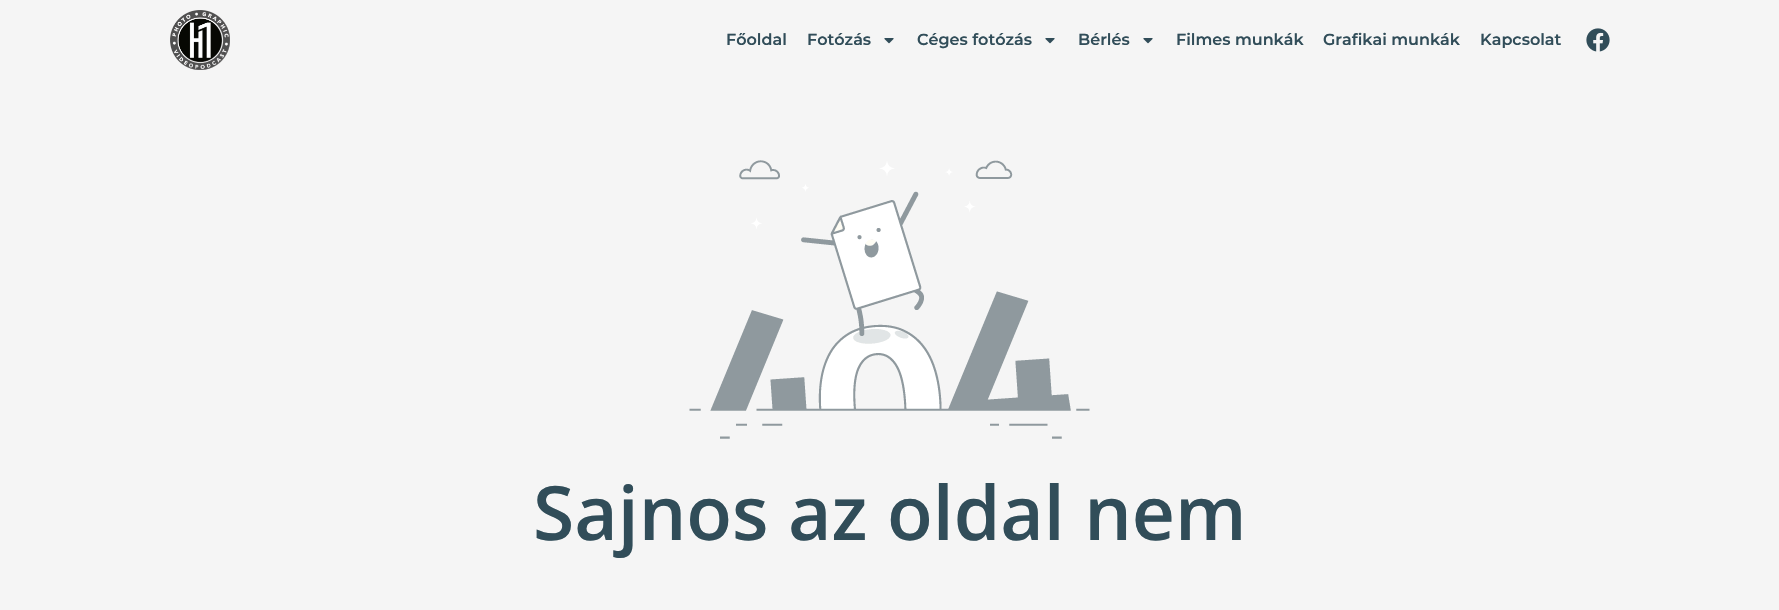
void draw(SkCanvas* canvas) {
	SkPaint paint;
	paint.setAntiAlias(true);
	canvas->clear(0xfff5f5f5);
	canvas->drawImageRect(SkImages::DeferredFromEncodedData(SkData::MakeFromFileName("img1.png")), SkRect::MakeXYWH(170, 10, 60, 60), SkSamplingOptions());
	SkFont f1(fontMgr->matchFamilyStyle("Montserrat", SkFontStyle(600, SkFontStyle::kNormal_Width, SkFontStyle::kUpright_Slant)), 16);
	f1.setSubpixel(true);
	paint.setColor(0xff314d59);
	canvas->drawString("Főoldal", 726, 45, f1, paint);
	canvas->drawString("Fotózás", 807, 45, f1, paint);
	canvas->drawImageRect(SkImages::DeferredFromEncodedData(SkData::MakeFromFileName("img2.png")), SkRect::MakeXYWH(884, 38, 10, 6), SkSamplingOptions());
	canvas->drawString("Céges fotózás", 917, 45, f1, paint);
	canvas->drawImageRect(SkImages::DeferredFromEncodedData(SkData::MakeFromFileName("img2.png")), SkRect::MakeXYWH(1045, 38, 10, 6), SkSamplingOptions());
	canvas->drawString("Bérlés", 1078, 45, f1, paint);
	canvas->drawImageRect(SkImages::DeferredFromEncodedData(SkData::MakeFromFileName("img2.png")), SkRect::MakeXYWH(1143, 38, 10, 6), SkSamplingOptions());
	canvas->drawString("Filmes munkák", 1176, 45, f1, paint);
	canvas->drawString("Grafikai munkák", 1323, 45, f1, paint);
	canvas->drawString("Kapcsolat", 1480, 45, f1, paint);
	canvas->drawImageRect(SkImages::DeferredFromEncodedData(SkData::MakeFromFileName("img3.png")), SkRect::MakeXYWH(1586, 28, 24, 24), SkSamplingOptions());
	canvas->drawImageRect(SkImages::DeferredFromEncodedData(SkData::MakeFromFileName("img4.png")), SkRect::MakeXYWH(689, 160, 401, 279), SkSamplingOptions());
	SkFont f2(fontMgr->matchFamilyStyle("Open Sans", SkFontStyle(600, SkFontStyle::kNormal_Width, SkFontStyle::kUpright_Slant)), 75);
	f2.setSubpixel(true);
	canvas->drawString("Sajnos az oldal nem", 533, 540, f2, paint);
}
